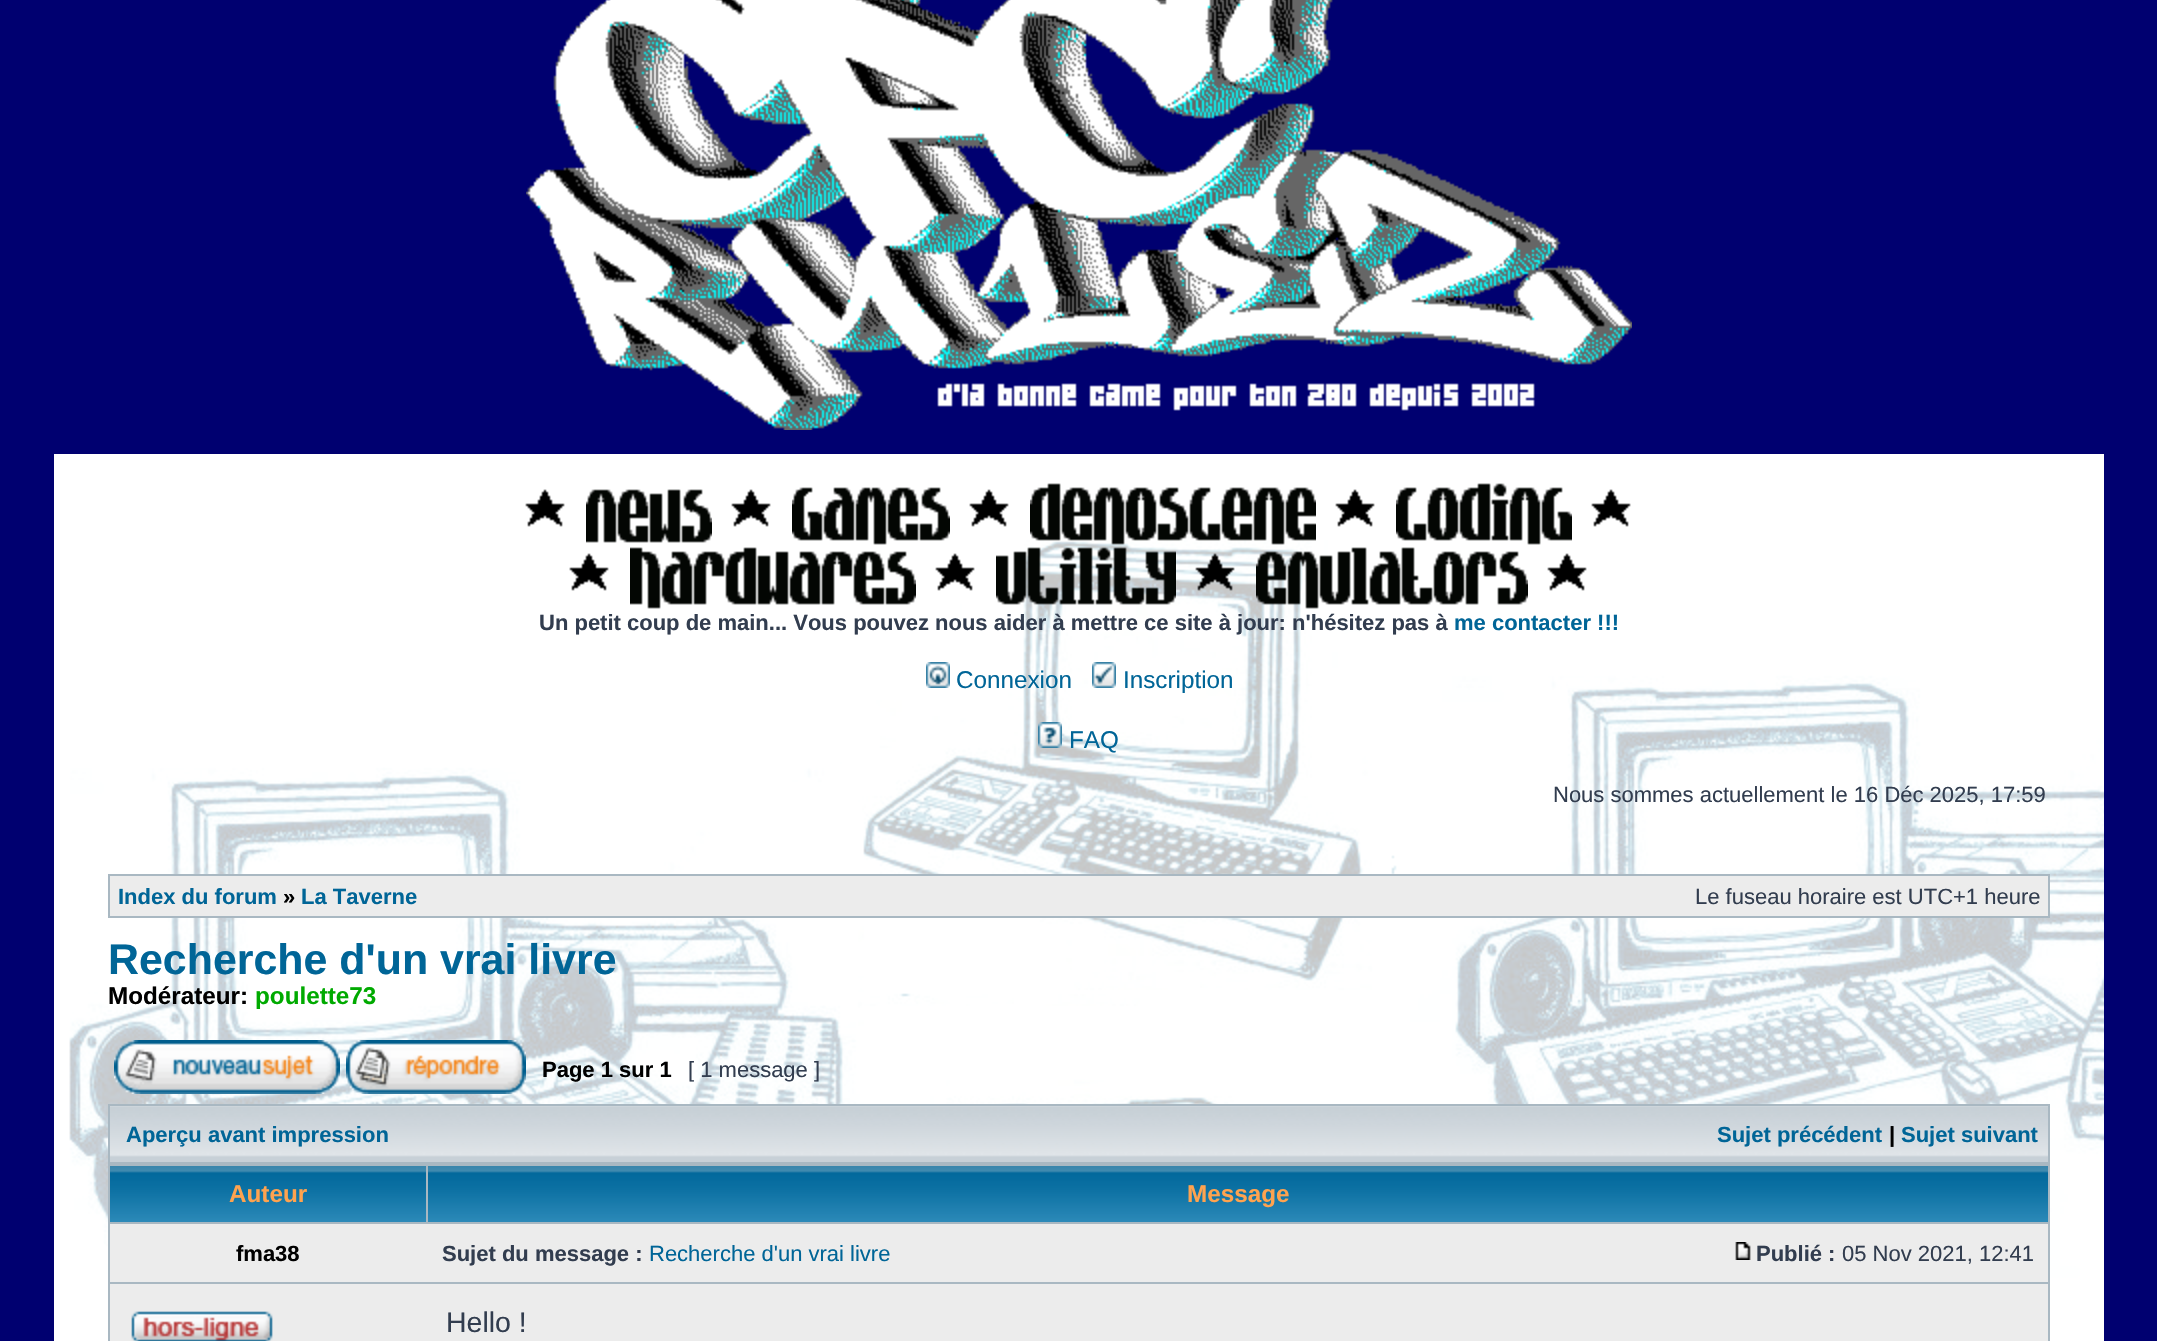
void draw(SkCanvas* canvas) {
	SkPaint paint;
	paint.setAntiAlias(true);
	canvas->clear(0xff000070);
	canvas->drawImageRect(SkImages::DeferredFromEncodedData(SkData::MakeFromFileName("img1.png")), SkRect::MakeXYWH(526, 0, 1106, 430), SkSamplingOptions());
	canvas->drawImageRect(SkImages::DeferredFromEncodedData(SkData::MakeFromFileName("img2.png")), SkRect::MakeXYWH(54, 454, 2050, 887), SkSamplingOptions());
	canvas->drawImageRect(SkImages::DeferredFromEncodedData(SkData::MakeFromFileName("img3.png")), SkRect::MakeXYWH(525, 489, 40, 38), SkSamplingOptions());
	canvas->drawImageRect(SkImages::DeferredFromEncodedData(SkData::MakeFromFileName("img4.png")), SkRect::MakeXYWH(586, 489, 126, 54), SkSamplingOptions());
	canvas->drawImageRect(SkImages::DeferredFromEncodedData(SkData::MakeFromFileName("img3.png")), SkRect::MakeXYWH(731, 489, 40, 38), SkSamplingOptions());
	canvas->drawImageRect(SkImages::DeferredFromEncodedData(SkData::MakeFromFileName("img5.png")), SkRect::MakeXYWH(792, 487, 158, 58), SkSamplingOptions());
	canvas->drawImageRect(SkImages::DeferredFromEncodedData(SkData::MakeFromFileName("img3.png")), SkRect::MakeXYWH(969, 489, 40, 38), SkSamplingOptions());
	canvas->drawImageRect(SkImages::DeferredFromEncodedData(SkData::MakeFromFileName("img6.png")), SkRect::MakeXYWH(1030, 483, 286, 62), SkSamplingOptions());
	canvas->drawImageRect(SkImages::DeferredFromEncodedData(SkData::MakeFromFileName("img3.png")), SkRect::MakeXYWH(1335, 489, 40, 38), SkSamplingOptions());
	canvas->drawImageRect(SkImages::DeferredFromEncodedData(SkData::MakeFromFileName("img7.png")), SkRect::MakeXYWH(1396, 483, 176, 62), SkSamplingOptions());
	canvas->drawImageRect(SkImages::DeferredFromEncodedData(SkData::MakeFromFileName("img3.png")), SkRect::MakeXYWH(1591, 489, 40, 38), SkSamplingOptions());
	canvas->drawImageRect(SkImages::DeferredFromEncodedData(SkData::MakeFromFileName("img3.png")), SkRect::MakeXYWH(569, 553, 40, 38), SkSamplingOptions());
	canvas->drawImageRect(SkImages::DeferredFromEncodedData(SkData::MakeFromFileName("img8.png")), SkRect::MakeXYWH(630, 547, 286, 62), SkSamplingOptions());
	canvas->drawImageRect(SkImages::DeferredFromEncodedData(SkData::MakeFromFileName("img3.png")), SkRect::MakeXYWH(935, 553, 40, 38), SkSamplingOptions());
	canvas->drawImageRect(SkImages::DeferredFromEncodedData(SkData::MakeFromFileName("img9.png")), SkRect::MakeXYWH(996, 547, 180, 58), SkSamplingOptions());
	canvas->drawImageRect(SkImages::DeferredFromEncodedData(SkData::MakeFromFileName("img10.png")), SkRect::MakeXYWH(1195, 553, 40, 38), SkSamplingOptions());
	canvas->drawImageRect(SkImages::DeferredFromEncodedData(SkData::MakeFromFileName("img11.png")), SkRect::MakeXYWH(1256, 547, 272, 62), SkSamplingOptions());
	canvas->drawImageRect(SkImages::DeferredFromEncodedData(SkData::MakeFromFileName("img3.png")), SkRect::MakeXYWH(1547, 553, 40, 38), SkSamplingOptions());
	SkFont f1(fontMgr->matchFamilyStyle("Liberation Sans", SkFontStyle::Bold()), 22);
	f1.setSubpixel(true);
	paint.setColor(0xff323d4f);
	canvas->drawString("Un petit coup de main... Vous pouvez nous aider à mettre ce site à jour: n'hésitez pas à", 539, 630, f1, paint);
	paint.setColor(0xff006597);
	canvas->drawString("me contacter !!!", 1454, 630, f1, paint);
	canvas->drawImageRect(SkImages::DeferredFromEncodedData(SkData::MakeFromFileName("img12.png")), SkRect::MakeXYWH(926, 662, 24, 26), SkSamplingOptions());
	SkFont f2(fontMgr->matchFamilyStyle("Liberation Sans", SkFontStyle::Normal()), 24.25);
	f2.setSubpixel(true);
	canvas->drawString("Connexion", 956, 688, f2, paint);
	canvas->drawImageRect(SkImages::DeferredFromEncodedData(SkData::MakeFromFileName("img13.png")), SkRect::MakeXYWH(1092, 662, 24, 26), SkSamplingOptions());
	canvas->drawString("Inscription", 1123, 688, f2, paint);
	canvas->drawImageRect(SkImages::DeferredFromEncodedData(SkData::MakeFromFileName("img14.png")), SkRect::MakeXYWH(1038, 722, 24, 26), SkSamplingOptions());
	canvas->drawString("FAQ", 1069, 748, f2, paint);
	SkFont f3(fontMgr->matchFamilyStyle("Liberation Sans", SkFontStyle::Normal()), 22);
	f3.setSubpixel(true);
	paint.setColor(0xff323d4f);
	canvas->drawString("Nous sommes actuellement le 16 Déc 2025, 17:59", 1553, 802, f3, paint);
	paint.setColor(0xffa9b8c2);
	canvas->drawRect(SkRect::MakeXYWH(108, 874, 1942, 44), paint);
	paint.setColor(0xffececec);
	canvas->drawRect(SkRect::MakeXYWH(110, 876, 1938, 40), paint);
	paint.setColor(0xff006597);
	canvas->drawString("Index du forum", 118, 904, f1, paint);
	paint.setColor(0xff000000);
	canvas->drawString("»", 283, 904, f1, paint);
	paint.setColor(0xff006597);
	canvas->drawString("La Taverne", 301, 904, f1, paint);
	paint.setColor(0xff323d4f);
	canvas->drawString("Le fuseau horaire est UTC+1 heure", 1695, 904, f3, paint);
	SkFont f4(fontMgr->matchFamilyStyle("Liberation Sans", SkFontStyle::Bold()), 42.9);
	f4.setSubpixel(true);
	paint.setColor(0xff006597);
	canvas->drawString("Recherche d'un vrai livre", 108, 974, f4, paint);
	SkFont f5(fontMgr->matchFamilyStyle("Liberation Sans", SkFontStyle::Bold()), 24.25);
	f5.setSubpixel(true);
	paint.setColor(0xff000000);
	canvas->drawString("Modérateur:", 108, 1004, f5, paint);
	paint.setColor(0xff00aa00);
	canvas->drawString("poulette73", 255, 1004, f5, paint);
	canvas->drawImageRect(SkImages::DeferredFromEncodedData(SkData::MakeFromFileName("img15.png")), SkRect::MakeXYWH(114, 1040, 226, 54), SkSamplingOptions());
	canvas->drawImageRect(SkImages::DeferredFromEncodedData(SkData::MakeFromFileName("img16.png")), SkRect::MakeXYWH(346, 1040, 180, 54), SkSamplingOptions());
	paint.setColor(0xff000000);
	canvas->drawString("Page 1 sur 1", 542, 1077, f1, paint);
	paint.setColor(0xff323d4f);
	canvas->drawString("[ 1 message ]", 688, 1077, f3, paint);
	paint.setColor(0xffa9b8c2);
	canvas->drawRect(SkRect::MakeXYWH(108, 1104, 1942, 237), paint);
	paint.setColor(0xffc7d0d7);
	canvas->drawRect(SkRect::MakeXYWH(110, 1157, 1938, 5), paint);
	canvas->drawImageRect(SkImages::DeferredFromEncodedData(SkData::MakeFromFileName("img17.png")), SkRect::MakeXYWH(110, 1106, 1938, 51), SkSamplingOptions());
	paint.setColor(0xff006597);
	canvas->drawString("Aperçu avant impression", 126, 1142, f1, paint);
	canvas->drawString("Sujet précédent", 1717, 1142, f1, paint);
	paint.setColor(0xff000000);
	canvas->drawString("|", 1889, 1142, f1, paint);
	paint.setColor(0xff006597);
	canvas->drawString("Sujet suivant", 1901, 1142, f1, paint);
	canvas->drawImageRect(SkImages::DeferredFromEncodedData(SkData::MakeFromFileName("img18.png")), SkRect::MakeXYWH(110, 1166, 316, 56), SkSamplingOptions());
	paint.setColor(0xffffa34f);
	canvas->drawString("Auteur", 229, 1202, f5, paint);
	canvas->drawImageRect(SkImages::DeferredFromEncodedData(SkData::MakeFromFileName("img19.png")), SkRect::MakeXYWH(428, 1166, 1620, 56), SkSamplingOptions());
	canvas->drawString("Message", 1187, 1202, f5, paint);
	paint.setColor(0xffececec);
	canvas->drawRect(SkRect::MakeXYWH(110, 1224, 1938, 58), paint);
	paint.setColor(0xff000000);
	canvas->drawString("fma38", 236, 1261, f1, paint);
	paint.setColor(0xff323d4f);
	canvas->drawString("Sujet du message :", 442, 1261, f1, paint);
	paint.setColor(0xff006597);
	canvas->drawString("Recherche d'un vrai livre", 649, 1261, f3, paint);
	canvas->drawImageRect(SkImages::DeferredFromEncodedData(SkData::MakeFromFileName("img20.png")), SkRect::MakeXYWH(1735, 1242, 16, 18), SkSamplingOptions());
	paint.setColor(0xff323d4f);
	canvas->drawString("Publié :", 1756, 1261, f1, paint);
	canvas->drawString("05 Nov 2021, 12:41", 1842, 1261, f3, paint);
	paint.setColor(0xffececec);
	canvas->drawRect(SkRect::MakeXYWH(110, 1284, 1938, 57), paint);
	canvas->drawImageRect(SkImages::DeferredFromEncodedData(SkData::MakeFromFileName("img21.png")), SkRect::MakeXYWH(131, 1311, 142, 30), SkSamplingOptions());
	SkFont f6(fontMgr->matchFamilyStyle("Liberation Sans", SkFontStyle::Normal()), 28.5);
	f6.setSubpixel(true);
	paint.setColor(0xff323d4f);
	canvas->drawString("Hello !", 446, 1332, f6, paint);
}
